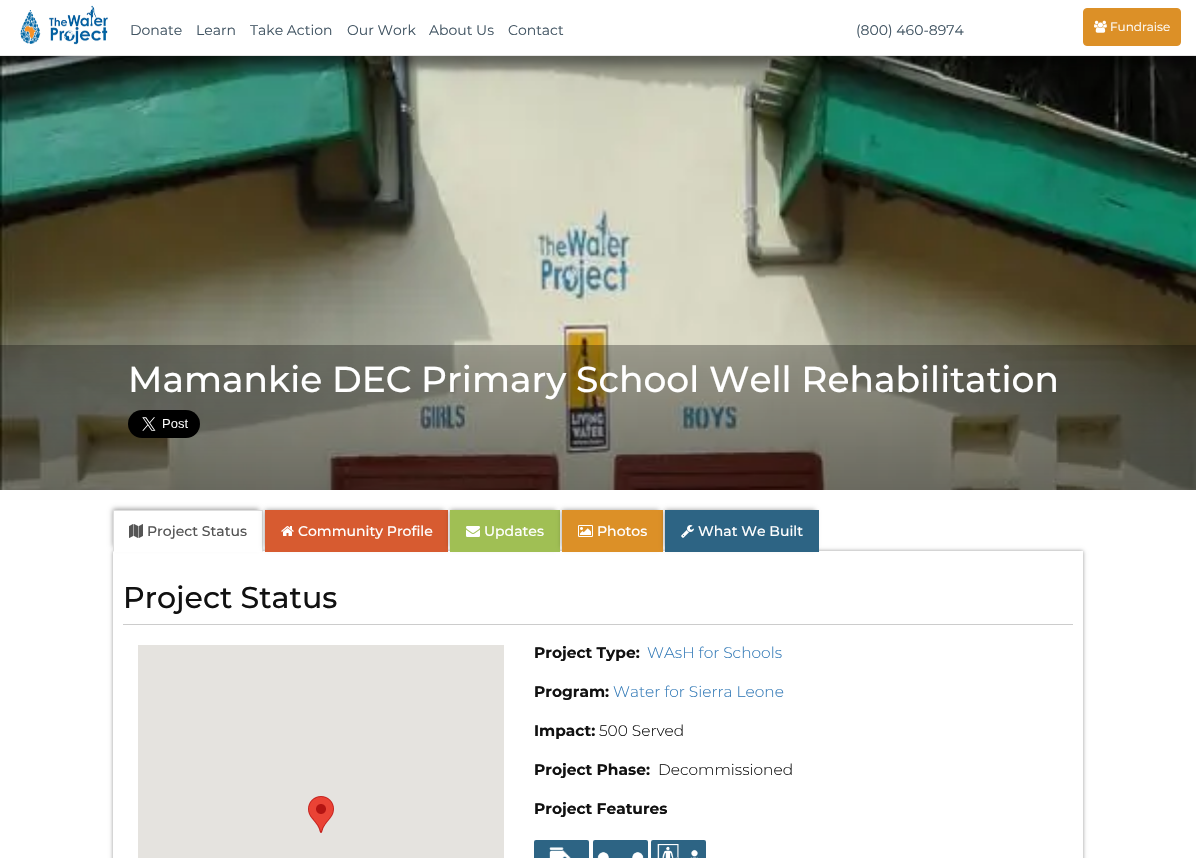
void draw(SkCanvas* canvas) {
	SkPaint paint;
	paint.setAntiAlias(true);
	auto svgPath = [&](const char* data, bool evenOdd = false) {
		SkPath result = *SkParsePath::FromSVGString(data);
		if (evenOdd) result.setFillType(SkPathFillType::kEvenOdd);
		return result;
	};
	canvas->clear(0xffffffff);
	canvas->drawImageRect(SkImages::DeferredFromEncodedData(SkData::MakeFromFileName("img3.png")), SkRect::MakeXYWH(0, 56, 1196, 434), SkSamplingOptions());
	paint.setColor(0x66000000);
	paint.setMaskFilter(SkMaskFilter::MakeBlur(kNormal_SkBlurStyle, 5));
	canvas->drawRect(SkRect::MakeXYWH(0, 10, 1196, 56), paint);
	paint.setMaskFilter(nullptr);
	paint.setColor(0xffffffff);
	canvas->drawRect(SkRect::MakeXYWH(0, 0, 1196, 55), paint);
	paint.setColor(0xffe7e7e7);
	canvas->drawRect(SkRect::MakeXYWH(0, 55, 1196, 1), paint);
	canvas->drawImageRect(SkImages::DeferredFromEncodedData(SkData::MakeFromFileName("img1.png")), SkRect::MakeXYWH(20, 5, 88, 40), SkSamplingOptions());
	SkFont f1(fontMgr->matchFamilyStyle("Montserrat", SkFontStyle::Normal()), 14);
	f1.setSubpixel(true);
	paint.setColor(0xff425563);
	canvas->drawString("Donate", 130, 35, f1, paint);
	canvas->drawString("Learn", 196, 35, f1, paint);
	canvas->drawString("Take Action", 250, 35, f1, paint);
	canvas->drawString("Our Work", 347, 35, f1, paint);
	canvas->drawString("About Us", 429, 35, f1, paint);
	canvas->drawString("Contact", 508, 35, f1, paint);
	canvas->drawString("(800) 460-8974", 856, 35, f1, paint);
	paint.setColor(0xffdc9027);
	canvas->drawRoundRect(SkRect::MakeXYWH(1083.5, 8.5, 97, 37), 3.5, 3.5, paint);
	paint.setStroke(true);
	paint.setStrokeWidth(1);
	canvas->drawRoundRect(SkRect::MakeXYWH(1083.5, 8.5, 97, 37), 3.5, 3.5, paint);
	canvas->drawImageRect(SkImages::DeferredFromEncodedData(SkData::MakeFromFileName("img2.png")), SkRect::MakeXYWH(1094, 20, 13, 13), SkSamplingOptions());
	SkFont f2(fontMgr->matchFamilyStyle("Montserrat", SkFontStyle::Normal()), 12);
	f2.setSubpixel(true);
	paint.setStroke(false);
	paint.setColor(0xffffffff);
	canvas->drawString("Fundraise", 1110, 31, f2, paint);
	SkFont f3(fontMgr->matchFamilyStyle("Montserrat", SkFontStyle(500, SkFontStyle::kNormal_Width, SkFontStyle::kUpright_Slant)), 36);
	f3.setSubpixel(true);
	canvas->drawString("Mamankie DEC Primary School Well Rehabilitation", 128, 392, f3, paint);
	canvas->drawImageRect(SkImages::DeferredFromEncodedData(SkData::MakeFromFileName("img4.png")), SkRect::MakeXYWH(128, 410, 72, 28), SkSamplingOptions());
	paint.setColor(0x66000000);
	paint.setMaskFilter(SkMaskFilter::MakeBlur(kNormal_SkBlurStyle, 2.5));
	canvas->drawRect(SkRect::MakeXYWH(113, 509, 146, 38), paint);
	paint.setMaskFilter(nullptr);
	canvas->save();
	canvas->clipPath(svgPath("M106 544H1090V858H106ZM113 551H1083V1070H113Z", true), true);
	paint.setMaskFilter(SkMaskFilter::MakeBlur(kNormal_SkBlurStyle, 2));
	canvas->drawRect(SkRect::MakeXYWH(113, 551, 970, 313), paint);
	paint.setMaskFilter(nullptr);
	canvas->restore();
	paint.setColor(0xffffffff);
	canvas->drawRect(SkRect::MakeXYWH(113, 511, 150, 41), paint);
	paint.setColor(0xffdddddd);
	canvas->drawRect(SkRect::MakeXYWH(113, 510, 150, 1), paint);
	canvas->drawPath(svgPath("M263 510V552L262 551V511Z"), paint);
	canvas->drawPath(svgPath("M113 552V510L114 511V551Z"), paint);
	canvas->drawImageRect(SkImages::DeferredFromEncodedData(SkData::MakeFromFileName("img5.png")), SkRect::MakeXYWH(129, 524, 14, 14), SkSamplingOptions());
	SkFont f4(fontMgr->matchFamilyStyle("Montserrat", SkFontStyle(500, SkFontStyle::kNormal_Width, SkFontStyle::kUpright_Slant)), 14);
	f4.setSubpixel(true);
	paint.setColor(0xff555555);
	canvas->drawString("Project Status", 147, 536, f4, paint);
	paint.setColor(0x66000000);
	paint.setMaskFilter(SkMaskFilter::MakeBlur(kNormal_SkBlurStyle, 2.5));
	canvas->drawRect(SkRect::MakeXYWH(265, 510, 179, 38), paint);
	paint.setMaskFilter(nullptr);
	paint.setColor(0xffd75b30);
	canvas->drawRect(SkRect::MakeXYWH(265, 510, 183, 42), paint);
	canvas->drawImageRect(SkImages::DeferredFromEncodedData(SkData::MakeFromFileName("img6.png")), SkRect::MakeXYWH(281, 526, 13, 10), SkSamplingOptions());
	paint.setColor(0xffffffff);
	canvas->drawString("Community Profile", 298, 536, f4, paint);
	paint.setColor(0x66000000);
	paint.setMaskFilter(SkMaskFilter::MakeBlur(kNormal_SkBlurStyle, 2.5));
	canvas->drawRect(SkRect::MakeXYWH(450, 510, 106, 38), paint);
	paint.setMaskFilter(nullptr);
	paint.setColor(0xffa0bf54);
	canvas->drawRect(SkRect::MakeXYWH(450, 510, 110, 42), paint);
	canvas->drawImageRect(SkImages::DeferredFromEncodedData(SkData::MakeFromFileName("img7.png")), SkRect::MakeXYWH(466, 526, 14, 11), SkSamplingOptions());
	paint.setColor(0xffffffff);
	canvas->drawString("Updates", 484, 536, f4, paint);
	paint.setColor(0x66000000);
	paint.setMaskFilter(SkMaskFilter::MakeBlur(kNormal_SkBlurStyle, 2.5));
	canvas->drawRect(SkRect::MakeXYWH(562, 510, 97, 38), paint);
	paint.setMaskFilter(nullptr);
	paint.setColor(0xffdc9027);
	canvas->drawRect(SkRect::MakeXYWH(562, 510, 101, 42), paint);
	canvas->drawImageRect(SkImages::DeferredFromEncodedData(SkData::MakeFromFileName("img8.png")), SkRect::MakeXYWH(578, 525, 15, 12), SkSamplingOptions());
	paint.setColor(0xffffffff);
	canvas->drawString("Photos", 597, 536, f4, paint);
	paint.setColor(0x66000000);
	paint.setMaskFilter(SkMaskFilter::MakeBlur(kNormal_SkBlurStyle, 2.5));
	canvas->drawRect(SkRect::MakeXYWH(665, 510, 150, 38), paint);
	paint.setMaskFilter(nullptr);
	paint.setColor(0xff2d6484);
	canvas->drawRect(SkRect::MakeXYWH(665, 510, 154, 42), paint);
	canvas->drawImageRect(SkImages::DeferredFromEncodedData(SkData::MakeFromFileName("img9.png")), SkRect::MakeXYWH(681, 525, 13, 13), SkSamplingOptions());
	paint.setColor(0xffffffff);
	canvas->drawString("What We Built", 698, 536, f4, paint);
	paint.setColor(0xffcccccc);
	canvas->drawRect(SkRect::MakeXYWH(123, 624, 950, 1), paint);
	SkFont f5(fontMgr->matchFamilyStyle("Montserrat", SkFontStyle(500, SkFontStyle::kNormal_Width, SkFontStyle::kUpright_Slant)), 30);
	f5.setSubpixel(true);
	paint.setColor(0xff111111);
	canvas->drawString("Project Status", 123, 608, f5, paint);
	paint.setColor(0xffe5e3df);
	canvas->drawRect(SkRect::MakeXYWH(138, 645, 366, 213), paint);
	canvas->drawImageRect(SkImages::DeferredFromEncodedData(SkData::MakeFromFileName("img10.png")), SkRect::MakeXYWH(308, 796, 26, 37), SkSamplingOptions());
	SkFont f6(fontMgr->matchFamilyStyle("Montserrat", SkFontStyle::Bold()), 15.4);
	f6.setSubpixel(true);
	paint.setColor(0xff111111);
	canvas->drawString("Project Type:", 534, 658, f6, paint);
	SkFont f7(fontMgr->matchFamilyStyle("Montserrat", SkFontStyle(300, SkFontStyle::kNormal_Width, SkFontStyle::kUpright_Slant)), 15.4);
	f7.setSubpixel(true);
	paint.setColor(0xff337ab7);
	canvas->drawString("WAsH for Schools", 647, 658, f7, paint);
	paint.setColor(0xff111111);
	canvas->drawString("Program:", 534, 697, f6, paint);
	paint.setColor(0xff337ab7);
	canvas->drawString("Water for Sierra Leone", 613, 697, f7, paint);
	paint.setColor(0xff111111);
	canvas->drawString("Impact:", 534, 736, f6, paint);
	canvas->drawString("500 Served", 599, 736, f7, paint);
	canvas->drawString("Project Phase:", 534, 775, f6, paint);
	canvas->drawString("Decommissioned", 658, 775, f7, paint);
	canvas->drawString("Project Features", 534, 814, f6, paint);
	paint.setColor(0xff2d6484);
	canvas->drawRoundRect(SkRect::MakeXYWH(534, 840, 55, 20), 2, 2, paint);
	canvas->drawImageRect(SkImages::DeferredFromEncodedData(SkData::MakeFromFileName("img11.png")), SkRect::MakeXYWH(549, 847, 22, 11), SkSamplingOptions());
	canvas->drawRoundRect(SkRect::MakeXYWH(593, 840, 55, 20), 2, 2, paint);
	canvas->drawImageRect(SkImages::DeferredFromEncodedData(SkData::MakeFromFileName("img12.png")), SkRect::MakeXYWH(597, 852, 47, 6), SkSamplingOptions());
	canvas->drawRoundRect(SkRect::MakeXYWH(651, 840, 55, 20), 2, 2, paint);
	canvas->drawImageRect(SkImages::DeferredFromEncodedData(SkData::MakeFromFileName("img13.png")), SkRect::MakeXYWH(657, 844, 41, 14), SkSamplingOptions());
}
